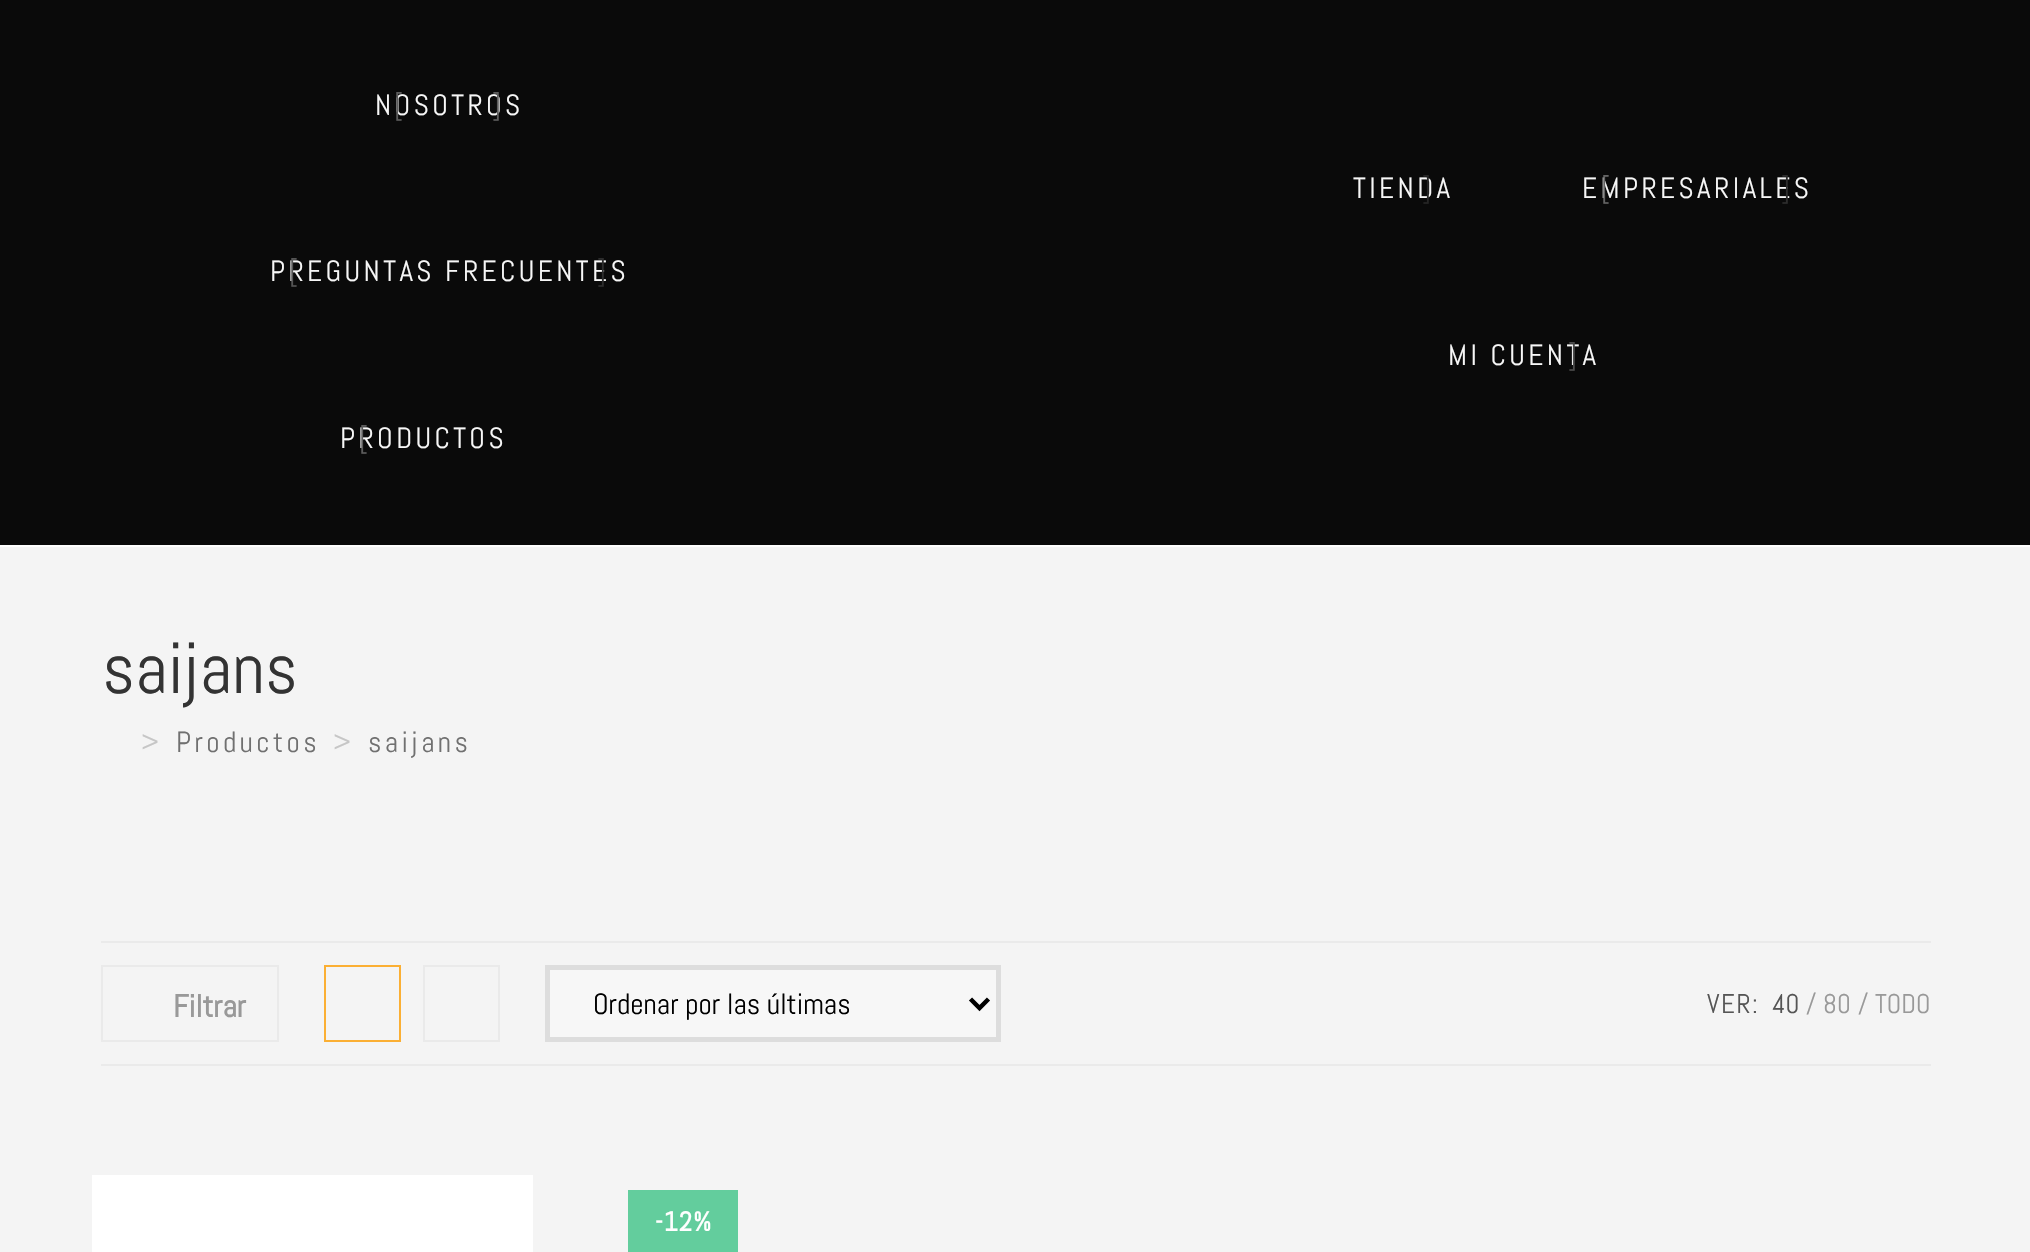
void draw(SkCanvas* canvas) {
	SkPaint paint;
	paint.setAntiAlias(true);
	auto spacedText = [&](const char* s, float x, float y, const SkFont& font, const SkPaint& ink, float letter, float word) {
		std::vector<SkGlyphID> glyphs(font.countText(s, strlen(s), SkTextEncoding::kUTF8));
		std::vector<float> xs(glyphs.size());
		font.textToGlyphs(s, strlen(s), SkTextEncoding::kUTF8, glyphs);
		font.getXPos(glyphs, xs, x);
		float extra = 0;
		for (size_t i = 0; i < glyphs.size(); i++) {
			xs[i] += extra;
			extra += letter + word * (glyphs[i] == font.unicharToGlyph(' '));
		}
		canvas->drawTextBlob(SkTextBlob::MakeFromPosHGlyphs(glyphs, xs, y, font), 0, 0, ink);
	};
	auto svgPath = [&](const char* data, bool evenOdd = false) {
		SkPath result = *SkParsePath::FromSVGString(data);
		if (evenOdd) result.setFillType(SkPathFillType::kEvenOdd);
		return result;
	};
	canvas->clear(0xfff4f4f4);
	paint.setColor(0xff0a0a0a);
	canvas->drawRect(SkRect::MakeXYWH(0, 0, 2030, 545), paint);
	paint.setColor(0xffffffff);
	canvas->drawRect(SkRect::MakeXYWH(0, 545, 2030, 2), paint);
	SkFont f1(fontMgr->matchFamilyStyle("Abel", SkFontStyle::Normal()), 29.25);
	f1.setSubpixel(true);
	paint.setColor(0xfff7f7f7);
	spacedText("NOSOTROS", 375, 115, f1, paint, 3.4, 0);
	paint.setColor(0xff5c5c5c);
	spacedText("[", 394, 115, f1, paint, 3.4, 0);
	spacedText("]", 492, 115, f1, paint, 3.4, 0);
	paint.setColor(0xfff7f7f7);
	spacedText("PREGUNTAS FRECUENTES", 270, 281, f1, paint, 3.4, 0);
	paint.setColor(0xff555555);
	spacedText("[", 289, 281, f1, paint, 3.4, 0);
	paint.setColor(0xff2d2d2d);
	spacedText("]", 597, 281, f1, paint, 3.4, 0);
	paint.setColor(0xfff7f7f7);
	spacedText("PRODUCTOS", 340, 448, f1, paint, 3.4, 0);
	paint.setColor(0xff5c5c5c);
	spacedText("[", 359, 448, f1, paint, 3.4, 0);
	paint.setColor(0xfff7f7f7);
	spacedText("TIENDA", 1353, 198, f1, paint, 3.4, 0);
	paint.setColor(0xff252525);
	spacedText("]", 1422, 198, f1, paint, 3.4, 0);
	paint.setColor(0xfff7f7f7);
	spacedText("EMPRESARIALES", 1582, 198, f1, paint, 3.4, 0);
	paint.setColor(0xff646464);
	spacedText("[", 1601, 198, f1, paint, 3.4, 0);
	paint.setColor(0xff2d2d2d);
	spacedText("]", 1781, 198, f1, paint, 3.4, 0);
	paint.setColor(0xfff7f7f7);
	spacedText("MI CUENTA", 1448, 365, f1, paint, 3.4, 0);
	paint.setColor(0xff4c4c4c);
	spacedText("]", 1568, 365, f1, paint, 3.4, 0);
	SkFont f2(fontMgr->matchFamilyStyle("Abel", SkFontStyle::Normal()), 72);
	f2.setSubpixel(true);
	paint.setColor(0xff333333);
	canvas->drawString("saijans", 102, 693, f2, paint);
	paint.setColor(0xffc6c6c6);
	spacedText(">", 141, 752, f1, paint, 3.4, 0);
	paint.setColor(0xff707070);
	spacedText("Productos", 176, 752, f1, paint, 3.4, 0);
	paint.setColor(0xffc6c6c6);
	spacedText(">", 333, 752, f1, paint, 3.4, 0);
	paint.setColor(0xff707070);
	spacedText("saijans", 368, 752, f1, paint, 3.4, 0);
	paint.setColor(0xffeaeaea);
	canvas->drawRect(SkRect::MakeXYWH(101, 941, 1830, 2), paint);
	canvas->drawRect(SkRect::MakeXYWH(101, 1064, 1830, 2), paint);
	paint.setStroke(true);
	paint.setStrokeWidth(2);
	canvas->drawRect(SkRect::MakeXYWH(102, 966, 176, 75), paint);
	SkFont f3(fontMgr->matchFamilyStyle("Abel", SkFontStyle::Bold()), 31.5);
	f3.setSubpixel(true);
	paint.setStroke(false);
	paint.setColor(0xff999999);
	canvas->drawString("Filtrar", 173, 1017, f3, paint);
	paint.setStroke(true);
	paint.setColor(0xfffbaf33);
	canvas->drawRect(SkRect::MakeXYWH(325, 966, 75, 75), paint);
	paint.setColor(0xffeaeaea);
	canvas->drawRect(SkRect::MakeXYWH(424, 966, 75, 75), paint);
	paint.setStroke(false);
	paint.setColor(0xfff7f7f7);
	canvas->drawRect(SkRect::MakeXYWH(547.5, 967.5, 451, 72), paint);
	paint.setStroke(true);
	paint.setStrokeWidth(5);
	paint.setColor(0xffdddddd);
	canvas->drawRect(SkRect::MakeXYWH(547.5, 967.5, 451, 72), paint);
	paint.setStrokeWidth(4.5);
	paint.setColor(0xff000000);
	canvas->drawPath(svgPath("M970.5 999L979.5 1008L988.5 999"), paint);
	paint.setStroke(false);
	canvas->drawString("Ordenar por las últimas", 593, 1014, f1, paint);
	SkFont f4(fontMgr->matchFamilyStyle("Abel", SkFontStyle::Normal()), 27);
	f4.setSubpixel(true);
	paint.setColor(0xff555555);
	spacedText("VER:", 1707, 1013, f4, paint, 1.5, 0);
	canvas->drawString("40", 1772, 1013, f4, paint);
	paint.setColor(0xff999999);
	canvas->drawString("/", 1806, 1013, f4, paint);
	canvas->drawString("80", 1823, 1013, f4, paint);
	canvas->drawString("/", 1858, 1013, f4, paint);
	canvas->drawString("TODO", 1875, 1013, f4, paint);
	paint.setColor(0xffffffff);
	canvas->drawRect(SkRect::MakeXYWH(92, 1175, 441, 77), paint);
	paint.setColor(0xff63cd9d);
	canvas->drawRect(SkRect::MakeXYWH(628, 1190, 110, 62), paint);
	SkFont f5(fontMgr->matchFamilyStyle("Abel", SkFontStyle::Bold()), 27);
	f5.setSubpixel(true);
	paint.setColor(0xffffffff);
	spacedText("-12%", 655, 1231, f5, paint, 1, 0);
}
